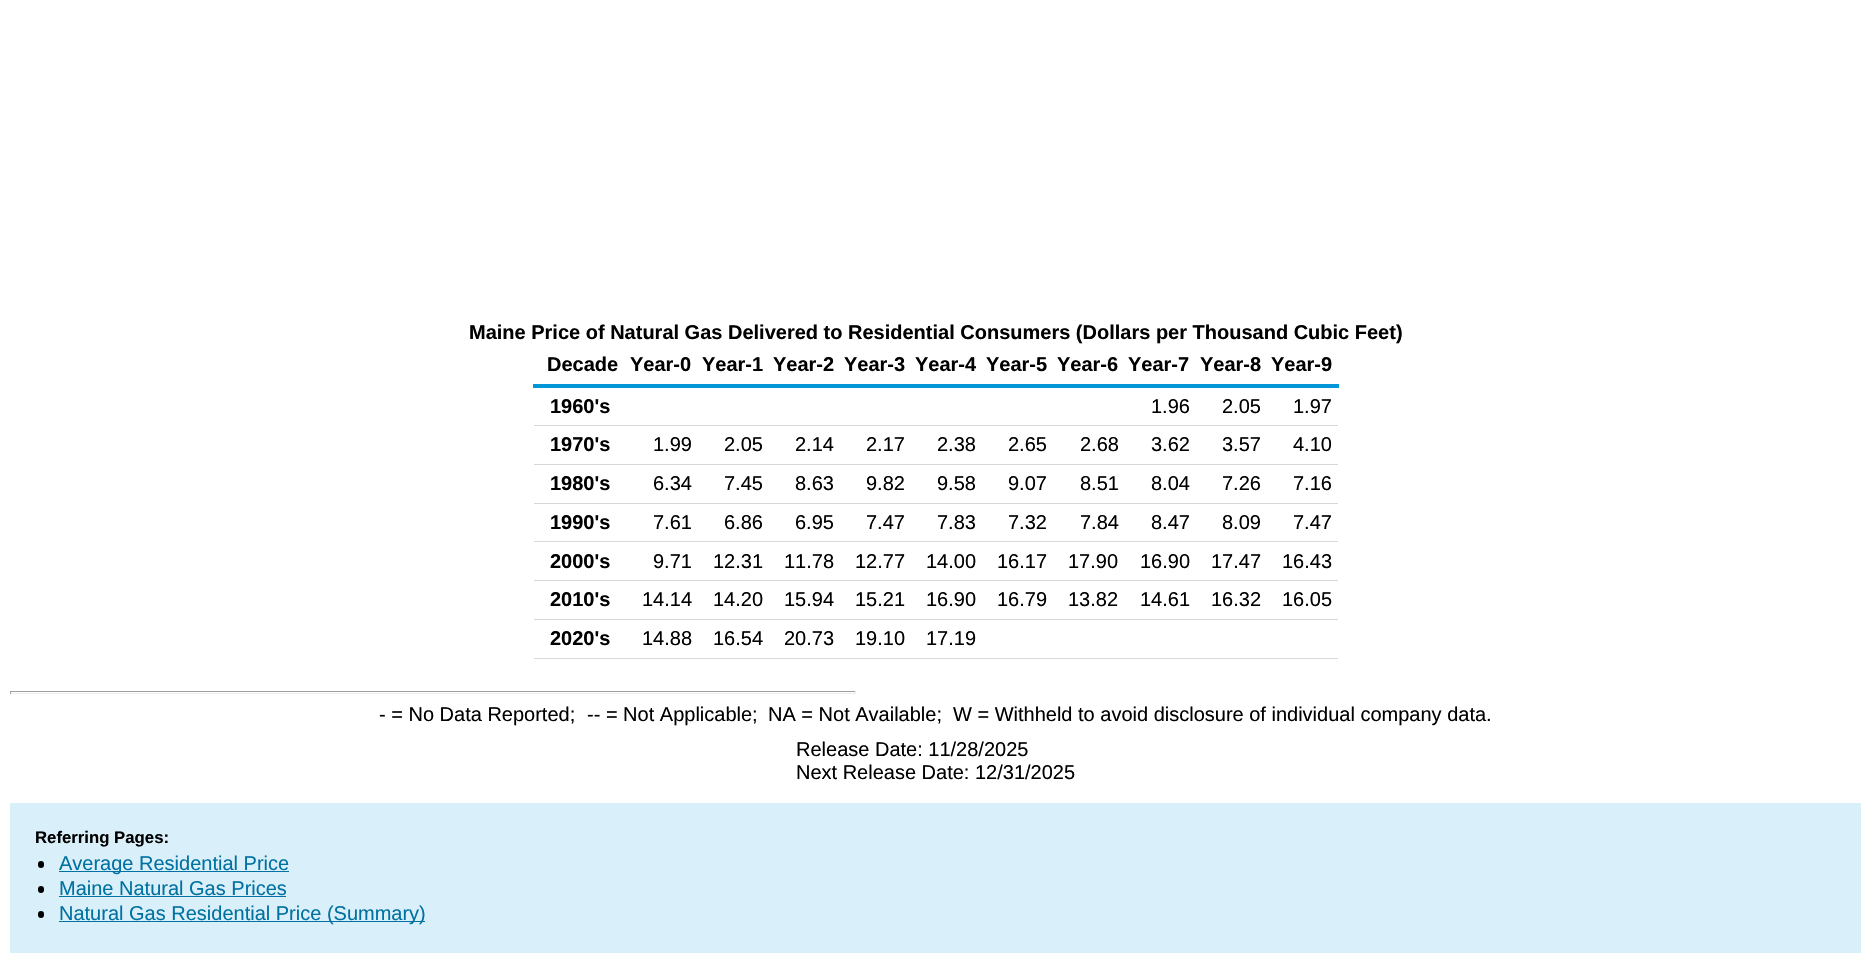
void draw(SkCanvas* canvas) {
	SkPaint paint;
	paint.setAntiAlias(true);
	canvas->clear(0xffffffff);
	SkFont f1(fontMgr->matchFamilyStyle("Liberation Sans", SkFontStyle::Bold()), 20);
	f1.setSubpixel(true);
	paint.setColor(0xff000000);
	canvas->drawString("Maine Price of Natural Gas Delivered to Residential Consumers (Dollars per Thousand Cubic Feet)", 469, 339, f1, paint);
	canvas->drawString("Decade", 547, 371, f1, paint);
	canvas->drawString("Year-0", 630, 371, f1, paint);
	canvas->drawString("Year-1", 702, 371, f1, paint);
	canvas->drawString("Year-2", 773, 371, f1, paint);
	canvas->drawString("Year-3", 844, 371, f1, paint);
	canvas->drawString("Year-4", 915, 371, f1, paint);
	canvas->drawString("Year-5", 986, 371, f1, paint);
	canvas->drawString("Year-6", 1057, 371, f1, paint);
	canvas->drawString("Year-7", 1128, 371, f1, paint);
	canvas->drawString("Year-8", 1200, 371, f1, paint);
	paint.setColor(0xff0096d7);
	canvas->drawRect(SkRect::MakeXYWH(533, 384, 806, 4), paint);
	paint.setColor(0xff000000);
	canvas->drawString("Year-9", 1271, 371, f1, paint);
	canvas->drawString("1960's", 550, 413, f1, paint);
	SkFont f2(fontMgr->matchFamilyStyle("Liberation Sans", SkFontStyle::Normal()), 20);
	f2.setSubpixel(true);
	canvas->drawString("1.96", 1151, 413, f2, paint);
	canvas->drawString("2.05", 1222, 413, f2, paint);
	paint.setColor(0xffd8d8d8);
	canvas->drawRect(SkRect::MakeXYWH(534, 425, 804, 1), paint);
	paint.setColor(0xff000000);
	canvas->drawString("1.97", 1293, 413, f2, paint);
	canvas->drawString("1970's", 550, 451, f1, paint);
	canvas->drawString("1.99", 653, 451, f2, paint);
	canvas->drawString("2.05", 724, 451, f2, paint);
	canvas->drawString("2.14", 795, 451, f2, paint);
	canvas->drawString("2.17", 866, 451, f2, paint);
	canvas->drawString("2.38", 937, 451, f2, paint);
	canvas->drawString("2.65", 1008, 451, f2, paint);
	canvas->drawString("2.68", 1080, 451, f2, paint);
	canvas->drawString("3.62", 1151, 451, f2, paint);
	canvas->drawString("3.57", 1222, 451, f2, paint);
	paint.setColor(0xffd8d8d8);
	canvas->drawRect(SkRect::MakeXYWH(534, 464, 804, 1), paint);
	paint.setColor(0xff000000);
	canvas->drawString("4.10", 1293, 451, f2, paint);
	canvas->drawString("1980's", 550, 490, f1, paint);
	canvas->drawString("6.34", 653, 490, f2, paint);
	canvas->drawString("7.45", 724, 490, f2, paint);
	canvas->drawString("8.63", 795, 490, f2, paint);
	canvas->drawString("9.82", 866, 490, f2, paint);
	canvas->drawString("9.58", 937, 490, f2, paint);
	canvas->drawString("9.07", 1008, 490, f2, paint);
	canvas->drawString("8.51", 1080, 490, f2, paint);
	canvas->drawString("8.04", 1151, 490, f2, paint);
	canvas->drawString("7.26", 1222, 490, f2, paint);
	paint.setColor(0xffd8d8d8);
	canvas->drawRect(SkRect::MakeXYWH(534, 503, 804, 1), paint);
	paint.setColor(0xff000000);
	canvas->drawString("7.16", 1293, 490, f2, paint);
	canvas->drawString("1990's", 550, 529, f1, paint);
	canvas->drawString("7.61", 653, 529, f2, paint);
	canvas->drawString("6.86", 724, 529, f2, paint);
	canvas->drawString("6.95", 795, 529, f2, paint);
	canvas->drawString("7.47", 866, 529, f2, paint);
	canvas->drawString("7.83", 937, 529, f2, paint);
	canvas->drawString("7.32", 1008, 529, f2, paint);
	canvas->drawString("7.84", 1080, 529, f2, paint);
	canvas->drawString("8.47", 1151, 529, f2, paint);
	canvas->drawString("8.09", 1222, 529, f2, paint);
	paint.setColor(0xffd8d8d8);
	canvas->drawRect(SkRect::MakeXYWH(534, 541, 804, 1), paint);
	paint.setColor(0xff000000);
	canvas->drawString("7.47", 1293, 529, f2, paint);
	canvas->drawString("2000's", 550, 568, f1, paint);
	canvas->drawString("9.71", 653, 568, f2, paint);
	canvas->drawString("12.31", 713, 568, f2, paint);
	canvas->drawString("11.78", 784, 568, f2, paint);
	canvas->drawString("12.77", 855, 568, f2, paint);
	canvas->drawString("14.00", 926, 568, f2, paint);
	canvas->drawString("16.17", 997, 568, f2, paint);
	canvas->drawString("17.90", 1068, 568, f2, paint);
	canvas->drawString("16.90", 1140, 568, f2, paint);
	canvas->drawString("17.47", 1211, 568, f2, paint);
	paint.setColor(0xffd8d8d8);
	canvas->drawRect(SkRect::MakeXYWH(534, 580, 804, 1), paint);
	paint.setColor(0xff000000);
	canvas->drawString("16.43", 1282, 568, f2, paint);
	canvas->drawString("2010's", 550, 606, f1, paint);
	canvas->drawString("14.14", 642, 606, f2, paint);
	canvas->drawString("14.20", 713, 606, f2, paint);
	canvas->drawString("15.94", 784, 606, f2, paint);
	canvas->drawString("15.21", 855, 606, f2, paint);
	canvas->drawString("16.90", 926, 606, f2, paint);
	canvas->drawString("16.79", 997, 606, f2, paint);
	canvas->drawString("13.82", 1068, 606, f2, paint);
	canvas->drawString("14.61", 1140, 606, f2, paint);
	canvas->drawString("16.32", 1211, 606, f2, paint);
	paint.setColor(0xffd8d8d8);
	canvas->drawRect(SkRect::MakeXYWH(534, 619, 804, 1), paint);
	paint.setColor(0xff000000);
	canvas->drawString("16.05", 1282, 606, f2, paint);
	canvas->drawString("2020's", 550, 645, f1, paint);
	canvas->drawString("14.88", 642, 645, f2, paint);
	canvas->drawString("16.54", 713, 645, f2, paint);
	canvas->drawString("20.73", 784, 645, f2, paint);
	canvas->drawString("19.10", 855, 645, f2, paint);
	canvas->drawString("17.19", 926, 645, f2, paint);
	paint.setColor(0xffd8d8d8);
	canvas->drawRect(SkRect::MakeXYWH(534, 658, 804, 1), paint);
	paint.setColor(0xff9f9f9f);
	canvas->drawRect(SkRect::MakeXYWH(10, 691, 846, 1), paint);
	paint.setColor(0xffeeeeee);
	canvas->drawRect(SkRect::MakeXYWH(855, 691, 1, 3), paint);
	canvas->drawRect(SkRect::MakeXYWH(10, 693, 846, 1), paint);
	paint.setColor(0xff9f9f9f);
	canvas->drawRect(SkRect::MakeXYWH(10, 691, 1, 3), paint);
	paint.setColor(0xff000000);
	canvas->drawString("- = No Data Reported;", 379, 721, f2, paint);
	canvas->drawString("-- = Not Applicable;", 587, 721, f2, paint);
	canvas->drawString("NA = Not Available;", 768, 721, f2, paint);
	canvas->drawString("W = Withheld to avoid disclosure of individual company data.", 953, 721, f2, paint);
	canvas->drawString("Release Date: 11/28/2025", 796, 756, f2, paint);
	canvas->drawString("Next Release Date: 12/31/2025", 796, 779, f2, paint);
	paint.setColor(0xffd9eff9);
	canvas->drawRect(SkRect::MakeXYWH(10, 803, 1851, 150), paint);
	SkFont f3(fontMgr->matchFamilyStyle("Liberation Sans", SkFontStyle::Bold()), 16.75);
	f3.setSubpixel(true);
	paint.setColor(0xff000000);
	canvas->drawString("Referring Pages:", 35, 843, f3, paint);
	canvas->drawRoundRect(SkRect::MakeXYWH(38, 861, 6, 7), 3, 3, paint);
	paint.setColor(0xff0071a1);
	canvas->drawRect(SkRect::MakeXYWH(59, 871, 230, 1), paint);
	canvas->drawString("Average Residential Price", 59, 870, f2, paint);
	paint.setColor(0xff000000);
	canvas->drawRoundRect(SkRect::MakeXYWH(38, 886, 6, 7), 3, 3, paint);
	paint.setColor(0xff0071a1);
	canvas->drawString("Maine Natural Gas Prices", 59, 895, f2, paint);
	canvas->drawRect(SkRect::MakeXYWH(59, 896, 227, 1), paint);
	paint.setColor(0xff000000);
	canvas->drawRoundRect(SkRect::MakeXYWH(38, 911, 6, 7), 3, 3, paint);
	paint.setColor(0xff0071a1);
	canvas->drawRect(SkRect::MakeXYWH(59, 921, 366, 1), paint);
	canvas->drawString("Natural Gas Residential Price (Summary)", 59, 920, f2, paint);
}
